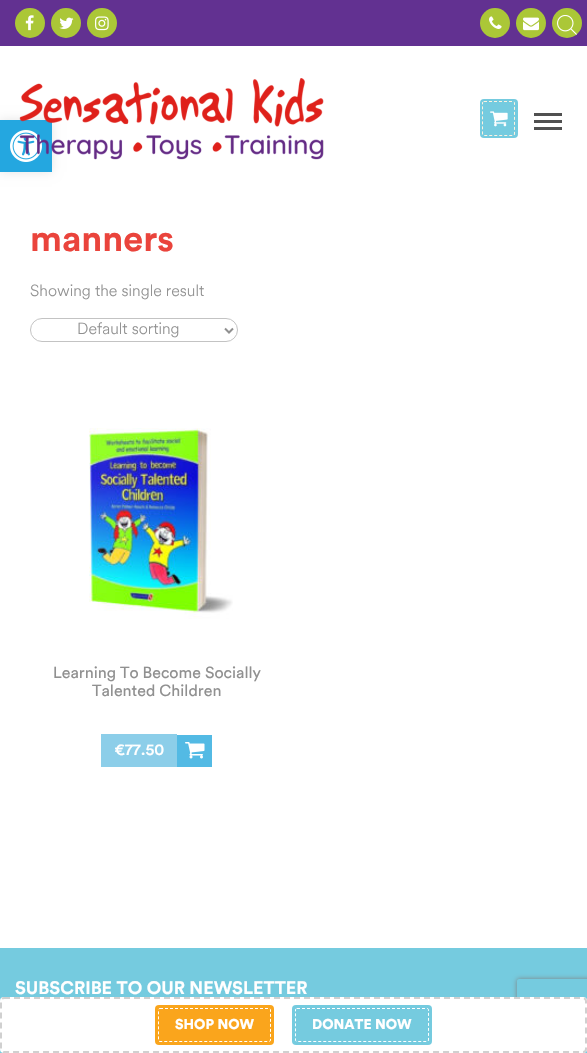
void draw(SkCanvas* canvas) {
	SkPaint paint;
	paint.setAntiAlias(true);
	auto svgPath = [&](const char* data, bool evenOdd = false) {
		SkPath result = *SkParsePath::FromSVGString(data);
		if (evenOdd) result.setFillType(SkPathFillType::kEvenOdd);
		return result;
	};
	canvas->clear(0xffffffff);
	paint.setColor(0x1a000000);
	paint.setMaskFilter(SkMaskFilter::MakeBlur(kNormal_SkBlurStyle, 5));
	canvas->drawRect(SkRect::MakeXYWH(0, 120, 52, 52), paint);
	paint.setMaskFilter(nullptr);
	paint.setColor(0xff24a7e0);
	canvas->drawRect(SkRect::MakeXYWH(0, 120, 52, 52), paint);
	canvas->drawImageRect(SkImages::DeferredFromEncodedData(SkData::MakeFromFileName("img1.png")), SkRect::MakeXYWH(10, 130, 32, 32), SkSamplingOptions());
	paint.setColor(0xff623191);
	canvas->drawRect(SkRect::MakeXYWH(0, 0, 587, 46), paint);
	paint.setColor(0xffabc737);
	canvas->drawCircle(30, 23, 15, paint);
	canvas->drawImageRect(SkImages::DeferredFromEncodedData(SkData::MakeFromFileName("img2.png")), SkRect::MakeXYWH(25, 15, 9, 16), SkSamplingOptions());
	canvas->drawCircle(66, 23, 15, paint);
	canvas->drawImageRect(SkImages::DeferredFromEncodedData(SkData::MakeFromFileName("img3.png")), SkRect::MakeXYWH(59, 17, 15, 12), SkSamplingOptions());
	canvas->drawCircle(102, 23, 15, paint);
	canvas->drawImageRect(SkImages::DeferredFromEncodedData(SkData::MakeFromFileName("img4.png")), SkRect::MakeXYWH(95, 16, 14, 15), SkSamplingOptions());
	canvas->drawCircle(495, 23, 15, paint);
	canvas->drawImageRect(SkImages::DeferredFromEncodedData(SkData::MakeFromFileName("img5.png")), SkRect::MakeXYWH(489, 16, 13, 13), SkSamplingOptions());
	canvas->drawCircle(531, 23, 15, paint);
	canvas->drawImageRect(SkImages::DeferredFromEncodedData(SkData::MakeFromFileName("img6.png")), SkRect::MakeXYWH(523, 17, 16, 14), SkSamplingOptions());
	canvas->drawCircle(567, 23, 15, paint);
	canvas->drawImageRect(SkImages::DeferredFromEncodedData(SkData::MakeFromFileName("img7.png")), SkRect::MakeXYWH(557, 15, 20, 20), SkSamplingOptions());
	canvas->drawImageRect(SkImages::DeferredFromEncodedData(SkData::MakeFromFileName("img8.png")), SkRect::MakeXYWH(19, 78, 305, 82), SkSamplingOptions());
	paint.setColor(0xff75cbdf);
	canvas->drawRoundRect(SkRect::MakeXYWH(480, 99, 38, 39), 4, 4, paint);
	paint.setStroke(true);
	paint.setStrokeWidth(1);
	paint.setColor(0xfffef3e1);
	paint.setPathEffect(SkDashPathEffect::Make({{3, 2}}, 0));
	canvas->drawPath(svgPath("M484 101.5H513C514 101.5 514.5 102 514.5 103V134C514.5 135 514 135.5 513 135.5H484C483 135.5 482.5 135 482.5 134V103C482.5 102 483 101.5 484 101.5Z"), paint);
	paint.setPathEffect(nullptr);
	canvas->drawImageRect(SkImages::DeferredFromEncodedData(SkData::MakeFromFileName("img9.png")), SkRect::MakeXYWH(490, 111, 18, 16), SkSamplingOptions());
	paint.setStroke(false);
	paint.setColor(0xff505050);
	canvas->drawRect(SkRect::MakeXYWH(534, 113, 28, 3), paint);
	canvas->drawRect(SkRect::MakeXYWH(534, 120, 28, 3), paint);
	canvas->drawRect(SkRect::MakeXYWH(534, 127, 28, 3), paint);
	SkFont f1(fontMgr->matchFamilyStyle("Circular", SkFontStyle::Bold()), 36);
	f1.setSubpixel(true);
	paint.setColor(0xffea443c);
	canvas->drawString("manners", 30, 251, f1, paint);
	SkFont f2(fontMgr->matchFamilyStyle("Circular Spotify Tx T", SkFontStyle(300, SkFontStyle::kNormal_Width, SkFontStyle::kUpright_Slant)), 16);
	f2.setSubpixel(true);
	paint.setColor(0xff909090);
	canvas->drawString("Showing the single result", 30, 296, f2, paint);
	paint.setStroke(true);
	paint.setColor(0xffc3c3c3);
	canvas->drawRoundRect(SkRect::MakeXYWH(30.5, 318.5, 207, 23), 11.5, 11.5, paint);
	paint.setStrokeWidth(2);
	paint.setColor(0xff909090);
	canvas->drawPath(svgPath("M225 328.5L229 332.5L233 328.5"), paint);
	paint.setStroke(false);
	canvas->drawString("Default sorting", 77, 334, f2, paint);
	canvas->drawImageRect(SkImages::DeferredFromEncodedData(SkData::MakeFromFileName("img10.png")), SkRect::MakeXYWH(89, 428, 144, 191), SkSamplingOptions());
	SkFont f3(fontMgr->matchFamilyStyle("Circular", SkFontStyle::Normal()), 16);
	f3.setSubpixel(true);
	canvas->drawString("Learning To Become Socially", 53, 678, f3, paint);
	canvas->drawString("Talented Children", 92, 696, f3, paint);
	paint.setColor(0xff8ccee9);
	canvas->drawRect(SkRect::MakeXYWH(101, 734, 76, 33), paint);
	SkFont f4(fontMgr->matchFamilyStyle("Circular", SkFontStyle(500, SkFontStyle::kNormal_Width, SkFontStyle::kUpright_Slant)), 16);
	f4.setSubpixel(true);
	paint.setColor(0xffffffff);
	canvas->drawString("€77.50", 114, 755, f4, paint);
	paint.setColor(0xff53bae4);
	canvas->drawRect(SkRect::MakeXYWH(177, 735, 35, 32), paint);
	canvas->drawImageRect(SkImages::DeferredFromEncodedData(SkData::MakeFromFileName("img11.png")), SkRect::MakeXYWH(185, 742, 20, 17), SkSamplingOptions());
	paint.setColor(0xff75cbdf);
	canvas->drawRect(SkRect::MakeXYWH(0, 948, 587, 105), paint);
	SkFont f5(fontMgr->matchFamilyStyle("Circular", SkFontStyle::Bold()), 18);
	f5.setSubpixel(true);
	paint.setColor(0xffffffff);
	canvas->drawString("SUBSCRIBE TO OUR NEWSLETTER", 15, 994, f5, paint);
	canvas->save();
	canvas->clipPath(svgPath("M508 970H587V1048H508ZM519 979H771C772 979 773 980 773 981V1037C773 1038 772 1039 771 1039H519C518 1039 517 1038 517 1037V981C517 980 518 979 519 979Z", true), true);
	paint.setColor(0xff808080);
	paint.setMaskFilter(SkMaskFilter::MakeBlur(kNormal_SkBlurStyle, 2.5));
	canvas->drawRoundRect(SkRect::MakeXYWH(517, 979, 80, 60), 2, 2, paint);
	paint.setMaskFilter(nullptr);
	canvas->restore();
	paint.setColor(0xffffffff);
	canvas->drawRoundRect(SkRect::MakeXYWH(0, 997, 587, 56), 4, 4, paint);
	paint.setStroke(true);
	paint.setColor(0xffd0d0d0);
	paint.setPathEffect(SkDashPathEffect::Make({{6, 4}}, 0));
	canvas->drawPath(svgPath("M4 998H583C584.5 998 586 999.5 586 1001V1049C586 1050.5 584.5 1052 583 1052H4C2.5 1052 1 1050.5 1 1049V1001C1 999.5 2.5 998 4 998Z"), paint);
	paint.setPathEffect(nullptr);
	paint.setStroke(false);
	paint.setColor(0xfffaa51c);
	canvas->drawRoundRect(SkRect::MakeXYWH(155, 1005, 119, 40), 4, 4, paint);
	paint.setStroke(true);
	paint.setStrokeWidth(1);
	paint.setColor(0xffffffff);
	paint.setPathEffect(SkDashPathEffect::Make({{3, 2}}, 0));
	canvas->drawPath(svgPath("M160 1008.5H269C270 1008.5 270.5 1009 270.5 1010V1040C270.5 1041 270 1041.5 269 1041.5H160C159 1041.5 158.5 1041 158.5 1040V1010C158.5 1009 159 1008.5 160 1008.5Z"), paint);
	paint.setPathEffect(nullptr);
	SkFont f6(fontMgr->matchFamilyStyle("Circular", SkFontStyle(900, SkFontStyle::kNormal_Width, SkFontStyle::kUpright_Slant)), 14);
	f6.setSubpixel(true);
	paint.setStroke(false);
	canvas->drawString("SHOP NOW", 175, 1029, f6, paint);
	paint.setColor(0xff75cbdf);
	canvas->drawRoundRect(SkRect::MakeXYWH(292, 1005, 140, 40), 4, 4, paint);
	paint.setStroke(true);
	paint.setColor(0xffffffff);
	paint.setPathEffect(SkDashPathEffect::Make({{3, 2}}, 0));
	canvas->drawPath(svgPath("M297 1008.5H427C428 1008.5 428.5 1009 428.5 1010V1040C428.5 1041 428 1041.5 427 1041.5H297C296 1041.5 295.5 1041 295.5 1040V1010C295.5 1009 296 1008.5 297 1008.5Z"), paint);
	paint.setPathEffect(nullptr);
	paint.setStroke(false);
	canvas->drawString("DONATE NOW", 312, 1029, f6, paint);
}
